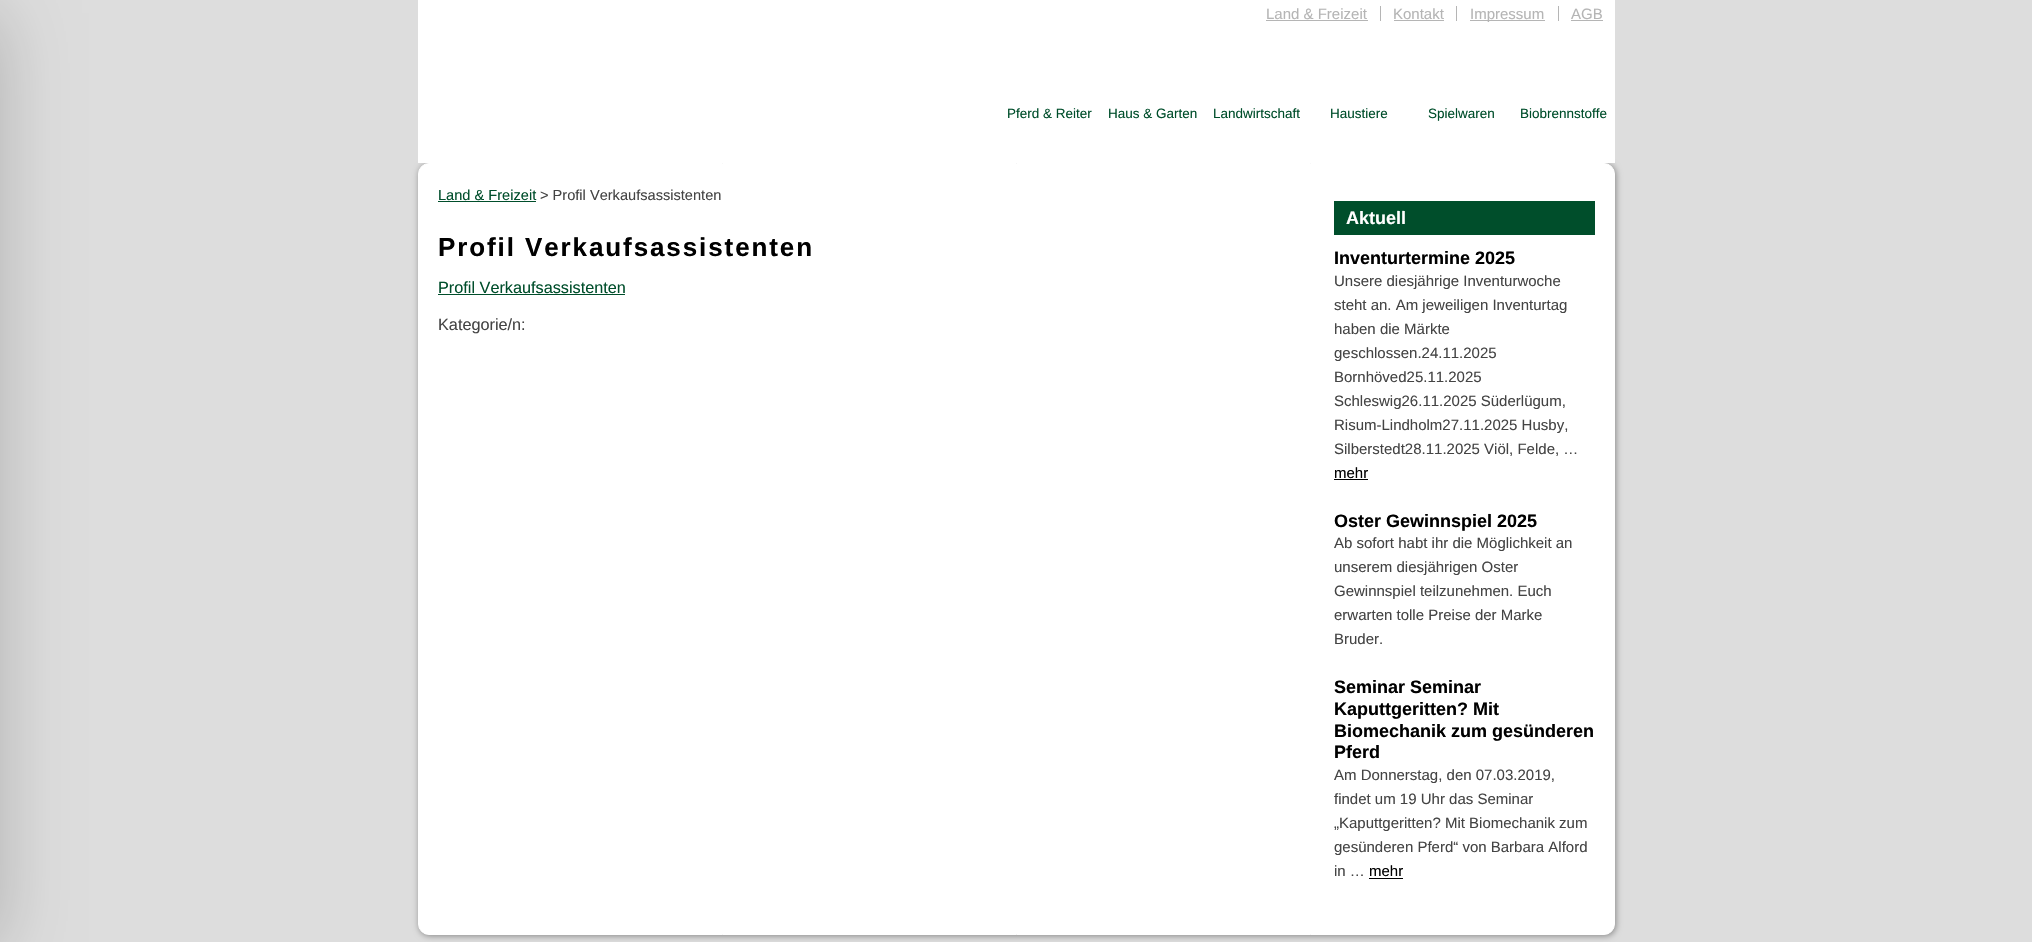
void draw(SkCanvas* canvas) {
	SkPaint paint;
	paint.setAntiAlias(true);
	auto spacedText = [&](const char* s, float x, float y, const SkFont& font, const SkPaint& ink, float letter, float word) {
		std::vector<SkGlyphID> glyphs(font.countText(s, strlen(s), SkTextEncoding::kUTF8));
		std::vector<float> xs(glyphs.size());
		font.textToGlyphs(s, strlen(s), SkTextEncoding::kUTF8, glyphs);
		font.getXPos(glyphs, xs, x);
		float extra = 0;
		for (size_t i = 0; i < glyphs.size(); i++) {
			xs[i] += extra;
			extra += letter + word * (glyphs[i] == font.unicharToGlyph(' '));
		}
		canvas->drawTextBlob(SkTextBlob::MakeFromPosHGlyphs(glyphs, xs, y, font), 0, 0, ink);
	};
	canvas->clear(0xffdddddd);
	paint.setColor(0x33000000);
	paint.setMaskFilter(SkMaskFilter::MakeBlur(kNormal_SkBlurStyle, 37.5));
	canvas->drawRect(SkRect::MakeXYWH(-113, 13, 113, 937), paint);
	paint.setMaskFilter(nullptr);
	paint.setColor(0xff888888);
	paint.setMaskFilter(SkMaskFilter::MakeBlur(kNormal_SkBlurStyle, 3));
	canvas->drawRoundRect(SkRect::MakeXYWH(419, 164, 1197, 772), 11, 11, paint);
	paint.setMaskFilter(nullptr);
	paint.setColor(0xffffffff);
	canvas->drawRect(SkRect::MakeXYWH(418, 0, 1197, 163), paint);
	paint.setColor(0xffb5b5b5);
	canvas->drawRect(SkRect::MakeXYWH(1380, 6, 1, 15), paint);
	SkFont f1(fontMgr->matchFamilyStyle("Liberation Sans", SkFontStyle::Normal()), 15);
	f1.setSubpixel(true);
	canvas->drawString("Land & Freizeit", 1266, 19, f1, paint);
	canvas->drawRect(SkRect::MakeXYWH(1266, 20, 102, 1), paint);
	canvas->drawRect(SkRect::MakeXYWH(1456, 6, 1, 15), paint);
	canvas->drawString("Kontakt", 1393, 19, f1, paint);
	canvas->drawRect(SkRect::MakeXYWH(1394, 20, 50, 1), paint);
	canvas->drawRect(SkRect::MakeXYWH(1558, 6, 1, 15), paint);
	canvas->drawRect(SkRect::MakeXYWH(1470, 20, 75, 1), paint);
	canvas->drawString("Impressum", 1470, 19, f1, paint);
	canvas->drawString("AGB", 1571, 19, f1, paint);
	canvas->drawRect(SkRect::MakeXYWH(1571, 20, 32, 1), paint);
	SkFont f2(fontMgr->matchFamilyStyle("Liberation Sans", SkFontStyle::Normal()), 13.5);
	f2.setSubpixel(true);
	paint.setColor(0xff004e2b);
	canvas->drawString("Pferd & Reiter", 1007, 118, f2, paint);
	canvas->drawString("Haus & Garten", 1108, 118, f2, paint);
	canvas->drawString("Landwirtschaft", 1213, 118, f2, paint);
	canvas->drawString("Haustiere", 1330, 118, f2, paint);
	canvas->drawString("Spielwaren", 1428, 118, f2, paint);
	canvas->drawString("Biobrennstoffe", 1520, 118, f2, paint);
	paint.setColor(0xffffffff);
	canvas->drawRoundRect(SkRect::MakeXYWH(418.5, 163.5, 1196, 771), 10.5, 10.5, paint);
	paint.setStroke(true);
	paint.setStrokeWidth(1);
	canvas->drawRoundRect(SkRect::MakeXYWH(418.5, 163.5, 1196, 771), 10.5, 10.5, paint);
	SkFont f3(fontMgr->matchFamilyStyle("Liberation Sans", SkFontStyle::Normal()), 14.6);
	f3.setSubpixel(true);
	paint.setStroke(false);
	paint.setColor(0xff004e2b);
	canvas->drawString("Land & Freizeit", 438, 200, f3, paint);
	canvas->drawRect(SkRect::MakeXYWH(438, 201, 98, 1), paint);
	paint.setColor(0xff444444);
	canvas->drawString("> Profil Verkaufsassistenten", 540, 200, f3, paint);
	SkFont f4(fontMgr->matchFamilyStyle("Liberation Sans", SkFontStyle::Bold()), 26);
	f4.setSubpixel(true);
	paint.setColor(0xff000000);
	spacedText("Profil Verkaufsassistenten", 438, 256, f4, paint, 1.9, 0);
	SkFont f5(fontMgr->matchFamilyStyle("Liberation Sans", SkFontStyle::Normal()), 16.25);
	f5.setSubpixel(true);
	paint.setColor(0xff004e2b);
	canvas->drawString("Profil Verkaufsassistenten", 438, 293, f5, paint);
	canvas->drawRect(SkRect::MakeXYWH(438, 294, 187, 1), paint);
	paint.setColor(0xff444444);
	canvas->drawString("Kategorie/n:", 438, 330, f5, paint);
	paint.setColor(0xff004e2b);
	canvas->drawRect(SkRect::MakeXYWH(1334, 201, 261, 34), paint);
	SkFont f6(fontMgr->matchFamilyStyle("Liberation Sans", SkFontStyle::Bold()), 18);
	f6.setSubpixel(true);
	paint.setColor(0xffffffff);
	canvas->drawString("Aktuell", 1346, 224, f6, paint);
	paint.setColor(0xff000000);
	canvas->drawString("Inventurtermine 2025", 1334, 264, f6, paint);
	paint.setColor(0xff444444);
	canvas->drawString("Unsere diesjährige Inventurwoche", 1334, 286, f1, paint);
	canvas->drawString("steht an. Am jeweiligen Inventurtag", 1334, 310, f1, paint);
	canvas->drawString("haben die Märkte", 1334, 334, f1, paint);
	canvas->drawString("geschlossen.24.11.2025", 1334, 358, f1, paint);
	canvas->drawString("Bornhöved25.11.2025", 1334, 382, f1, paint);
	canvas->drawString("Schleswig26.11.2025 Süderlügum,", 1334, 406, f1, paint);
	canvas->drawString("Risum-Lindholm27.11.2025 Husby,", 1334, 430, f1, paint);
	canvas->drawString("Silberstedt28.11.2025 Viöl, Felde, …", 1334, 454, f1, paint);
	paint.setColor(0xff000000);
	canvas->drawString("mehr", 1334, 478, f1, paint);
	canvas->drawRect(SkRect::MakeXYWH(1334, 479, 34, 1), paint);
	canvas->drawString("Oster Gewinnspiel 2025", 1334, 527, f6, paint);
	paint.setColor(0xff444444);
	canvas->drawString("Ab sofort habt ihr die Möglichkeit an", 1334, 548, f1, paint);
	canvas->drawString("unserem diesjährigen Oster", 1334, 572, f1, paint);
	canvas->drawString("Gewinnspiel teilzunehmen. Euch", 1334, 596, f1, paint);
	canvas->drawString("erwarten tolle Preise der Marke", 1334, 620, f1, paint);
	canvas->drawString("Bruder.", 1334, 644, f1, paint);
	paint.setColor(0xff000000);
	canvas->drawString("Seminar Seminar", 1334, 693, f6, paint);
	canvas->drawString("Kaputtgeritten? Mit", 1334, 715, f6, paint);
	canvas->drawString("Biomechanik zum gesünderen", 1334, 737, f6, paint);
	canvas->drawString("Pferd", 1334, 758, f6, paint);
	paint.setColor(0xff444444);
	canvas->drawString("Am Donnerstag, den 07.03.2019,", 1334, 780, f1, paint);
	canvas->drawString("findet um 19 Uhr das Seminar", 1334, 804, f1, paint);
	canvas->drawString("„Kaputtgeritten? Mit Biomechanik zum", 1334, 828, f1, paint);
	canvas->drawString("gesünderen Pferd“ von Barbara Alford", 1334, 852, f1, paint);
	canvas->drawString("in …", 1334, 876, f1, paint);
	paint.setColor(0xff000000);
	canvas->drawString("mehr", 1369, 876, f1, paint);
	canvas->drawRect(SkRect::MakeXYWH(1369, 878, 34, 1), paint);
}
